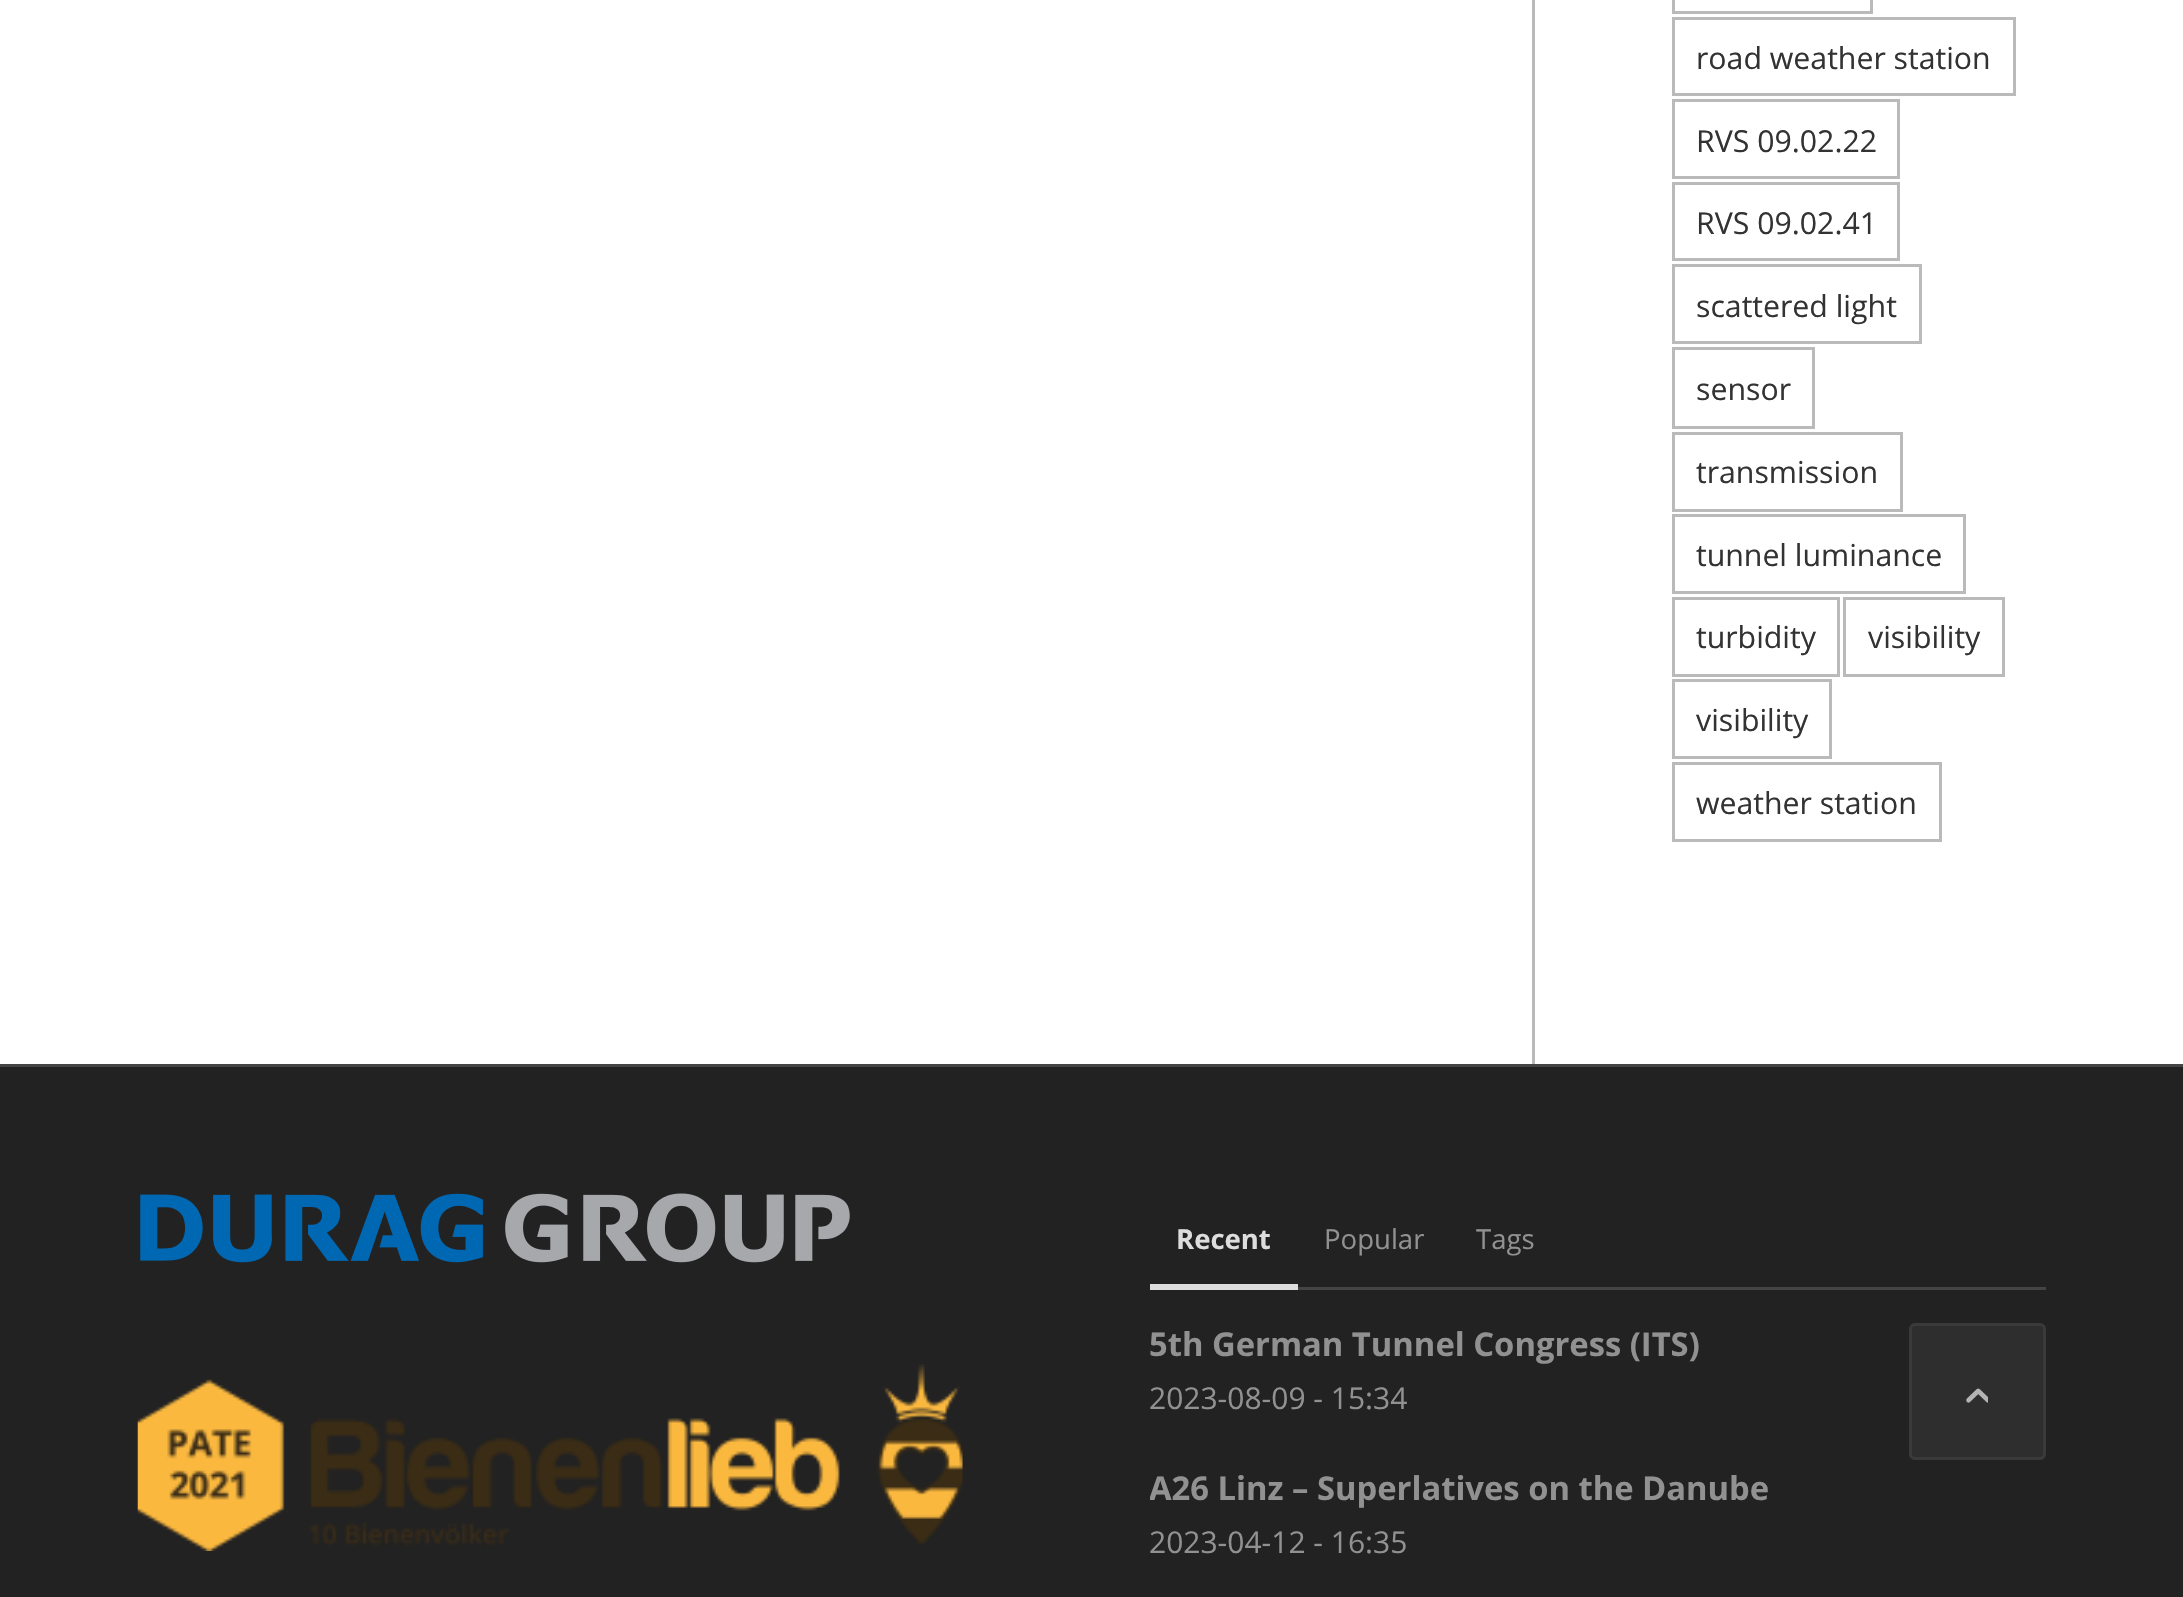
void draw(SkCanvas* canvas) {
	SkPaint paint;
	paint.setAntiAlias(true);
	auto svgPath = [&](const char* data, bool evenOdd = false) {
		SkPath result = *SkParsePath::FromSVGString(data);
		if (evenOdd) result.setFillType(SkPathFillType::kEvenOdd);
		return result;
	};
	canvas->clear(0xffffffff);
	paint.setColor(0xffbababa);
	canvas->drawRect(SkRect::MakeXYWH(1532, 0, 3, 1064), paint);
	paint.setStroke(true);
	paint.setStrokeWidth(3);
	canvas->drawRect(SkRect::MakeXYWH(1673.5, -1.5, 198, 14), paint);
	canvas->drawRect(SkRect::MakeXYWH(1673.5, 18.5, 341, 76), paint);
	SkFont f1(fontMgr->matchFamilyStyle("Open Sans", SkFontStyle::Normal()), 30.25);
	f1.setSubpixel(true);
	paint.setStroke(false);
	paint.setColor(0xff333333);
	canvas->drawString("road weather station", 1696, 69, f1, paint);
	paint.setStroke(true);
	paint.setColor(0xffbababa);
	canvas->drawRect(SkRect::MakeXYWH(1673.5, 100.5, 225, 77), paint);
	paint.setStroke(false);
	paint.setColor(0xff333333);
	canvas->drawString("RVS 09.02.22", 1696, 152, f1, paint);
	paint.setStroke(true);
	paint.setColor(0xffbababa);
	canvas->drawRect(SkRect::MakeXYWH(1673.5, 183.5, 225, 76), paint);
	paint.setStroke(false);
	paint.setColor(0xff333333);
	canvas->drawString("RVS 09.02.41", 1696, 234, f1, paint);
	paint.setStroke(true);
	paint.setColor(0xffbababa);
	canvas->drawRect(SkRect::MakeXYWH(1673.5, 265.5, 247, 77), paint);
	paint.setStroke(false);
	paint.setColor(0xff333333);
	canvas->drawString("scattered light", 1696, 317, f1, paint);
	paint.setStroke(true);
	paint.setColor(0xffbababa);
	canvas->drawRect(SkRect::MakeXYWH(1673.5, 348.5, 140, 79), paint);
	paint.setStroke(false);
	paint.setColor(0xff333333);
	canvas->drawString("sensor", 1696, 400, f1, paint);
	paint.setStroke(true);
	paint.setColor(0xffbababa);
	canvas->drawRect(SkRect::MakeXYWH(1673.5, 433.5, 228, 77), paint);
	paint.setStroke(false);
	paint.setColor(0xff333333);
	canvas->drawString("transmission", 1696, 483, f1, paint);
	paint.setStroke(true);
	paint.setColor(0xffbababa);
	canvas->drawRect(SkRect::MakeXYWH(1673.5, 515.5, 291, 77), paint);
	paint.setStroke(false);
	paint.setColor(0xff333333);
	canvas->drawString("tunnel luminance", 1696, 566, f1, paint);
	paint.setStroke(true);
	paint.setColor(0xffbababa);
	canvas->drawRect(SkRect::MakeXYWH(1673.5, 598.5, 165, 77), paint);
	paint.setStroke(false);
	paint.setColor(0xff333333);
	canvas->drawString("turbidity", 1696, 648, f1, paint);
	paint.setStroke(true);
	paint.setColor(0xffbababa);
	canvas->drawRect(SkRect::MakeXYWH(1844.5, 598.5, 159, 77), paint);
	paint.setStroke(false);
	paint.setColor(0xff333333);
	canvas->drawString("visibility", 1868, 648, f1, paint);
	paint.setStroke(true);
	paint.setColor(0xffbababa);
	canvas->drawRect(SkRect::MakeXYWH(1673.5, 680.5, 157, 77), paint);
	paint.setStroke(false);
	paint.setColor(0xff333333);
	canvas->drawString("visibility", 1696, 731, f1, paint);
	paint.setStroke(true);
	paint.setColor(0xffbababa);
	canvas->drawRect(SkRect::MakeXYWH(1673.5, 763.5, 267, 77), paint);
	paint.setStroke(false);
	paint.setColor(0xff333333);
	canvas->drawString("weather station", 1696, 814, f1, paint);
	paint.setColor(0xff222222);
	canvas->drawRect(SkRect::MakeXYWH(0, 1067, 2183, 530), paint);
	paint.setColor(0xff444444);
	canvas->drawRect(SkRect::MakeXYWH(0, 1064, 2183, 3), paint);
	canvas->drawImageRect(SkImages::DeferredFromEncodedData(SkData::MakeFromFileName("img1.png")), SkRect::MakeXYWH(140, 1193, 710, 70), SkSamplingOptions());
	canvas->drawImageRect(SkImages::DeferredFromEncodedData(SkData::MakeFromFileName("img2.png")), SkRect::MakeXYWH(137, 1364, 826, 187), SkSamplingOptions());
	canvas->drawRect(SkRect::MakeXYWH(1298, 1287, 748, 3), paint);
	paint.setColor(0xffdddddd);
	canvas->drawRect(SkRect::MakeXYWH(1150, 1284, 148, 6), paint);
	SkFont f2(fontMgr->matchFamilyStyle("Open Sans", SkFontStyle::Bold()), 27.5);
	f2.setSubpixel(true);
	canvas->drawString("Recent", 1176, 1249, f2, paint);
	SkFont f3(fontMgr->matchFamilyStyle("Open Sans", SkFontStyle::Normal()), 27.5);
	f3.setSubpixel(true);
	paint.setColor(0xff919191);
	canvas->drawString("Popular", 1324, 1249, f3, paint);
	canvas->drawString("Tags", 1476, 1249, f3, paint);
	SkFont f4(fontMgr->matchFamilyStyle("Open Sans", SkFontStyle::Bold()), 32.75);
	f4.setSubpixel(true);
	canvas->drawString("5th German Tunnel Congress (ITS)", 1149, 1356, f4, paint);
	SkFont f5(fontMgr->matchFamilyStyle("Open Sans", SkFontStyle::Normal()), 30);
	f5.setSubpixel(true);
	canvas->drawString("2023-08-09 - 15:34", 1149, 1409, f5, paint);
	canvas->save();
	canvas->clipPath(svgPath("M1156 1290H2040C2043.5 1290 2046 1292.5 2046 1296V2004C2046 2007.5 2043.5 2010 2040 2010H1156C1152.5 2010 1150 2007.5 1150 2004V1296C1150 1292.5 1152.5 1290 1156 1290Z"), true);
	canvas->drawString("A26 Linz – Superlatives on the Danube", 1149, 1500, f4, paint);
	canvas->restore();
	canvas->drawString("2023-04-12 - 16:35", 1149, 1553, f5, paint);
	paint.setColor(0xff2e2e2e);
	canvas->drawRoundRect(SkRect::MakeXYWH(1910.5, 1324.5, 134, 134), 4.5, 4.5, paint);
	paint.setStroke(true);
	paint.setColor(0xff3a3a3a);
	canvas->drawRoundRect(SkRect::MakeXYWH(1910.5, 1324.5, 134, 134), 4.5, 4.5, paint);
	canvas->drawImageRect(SkImages::DeferredFromEncodedData(SkData::MakeFromFileName("img3.png")), SkRect::MakeXYWH(1966, 1388, 22, 15), SkSamplingOptions());
}
